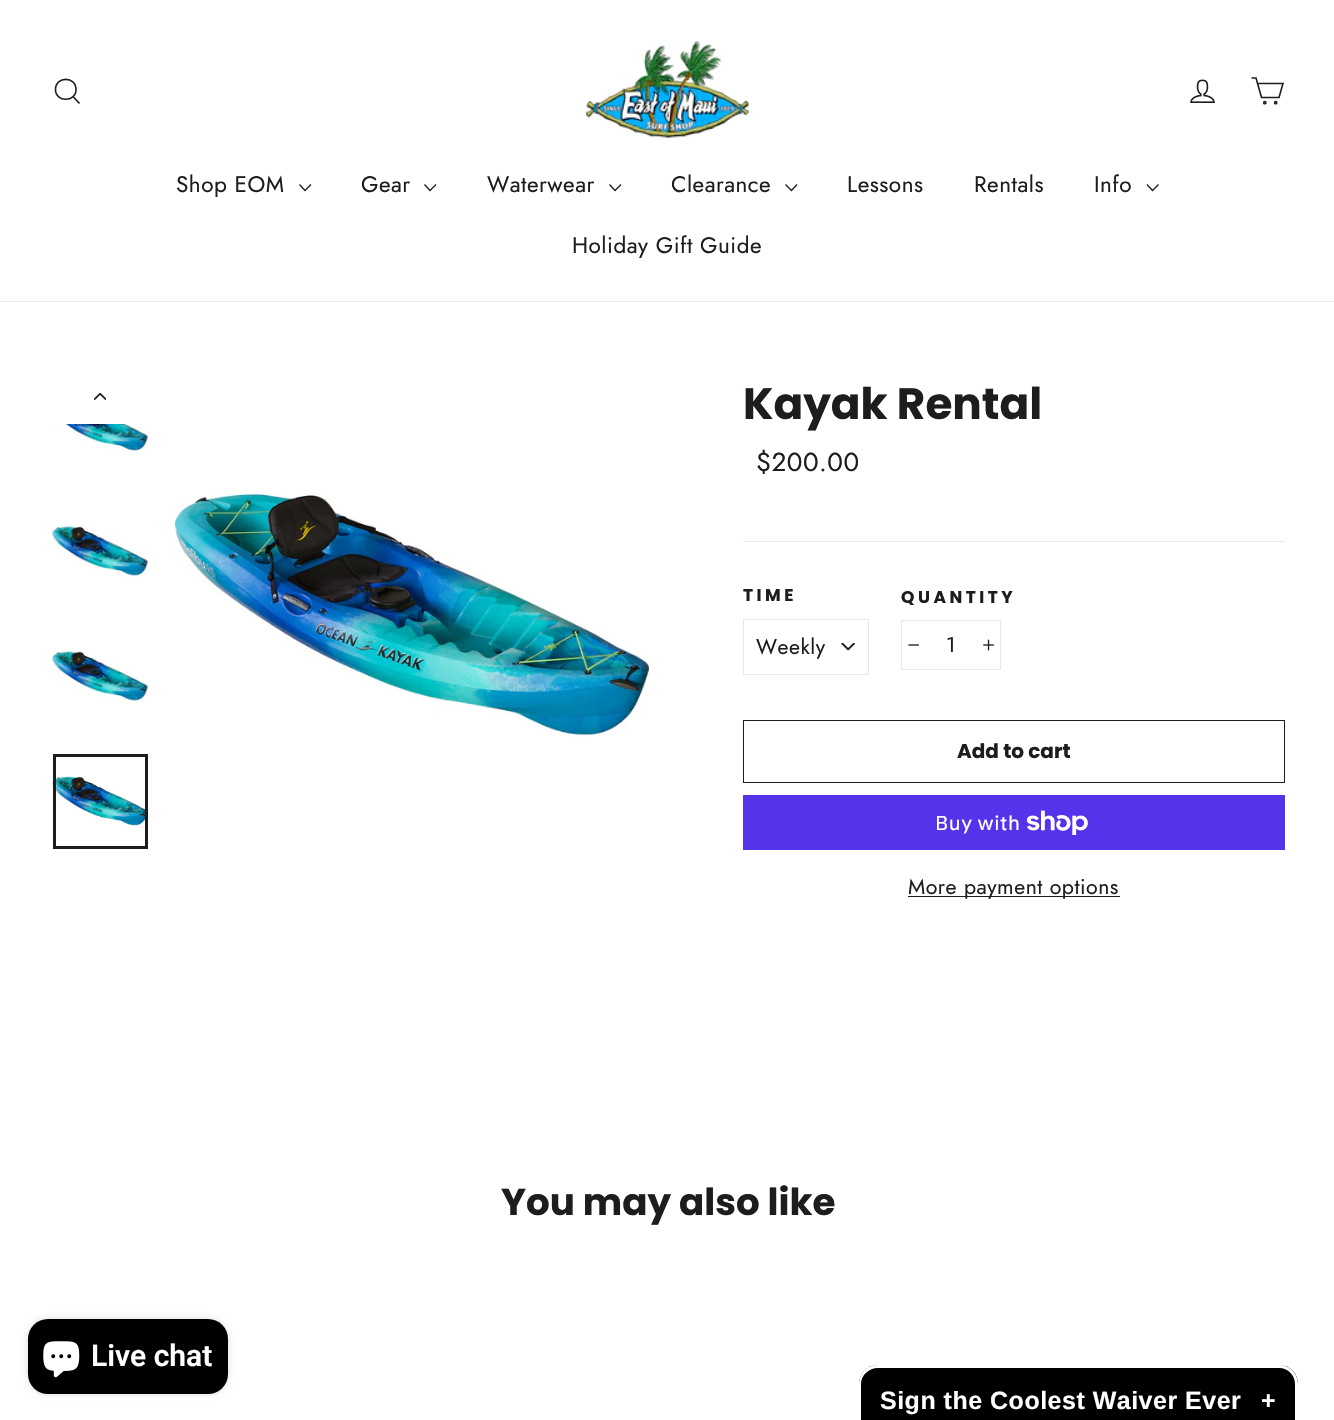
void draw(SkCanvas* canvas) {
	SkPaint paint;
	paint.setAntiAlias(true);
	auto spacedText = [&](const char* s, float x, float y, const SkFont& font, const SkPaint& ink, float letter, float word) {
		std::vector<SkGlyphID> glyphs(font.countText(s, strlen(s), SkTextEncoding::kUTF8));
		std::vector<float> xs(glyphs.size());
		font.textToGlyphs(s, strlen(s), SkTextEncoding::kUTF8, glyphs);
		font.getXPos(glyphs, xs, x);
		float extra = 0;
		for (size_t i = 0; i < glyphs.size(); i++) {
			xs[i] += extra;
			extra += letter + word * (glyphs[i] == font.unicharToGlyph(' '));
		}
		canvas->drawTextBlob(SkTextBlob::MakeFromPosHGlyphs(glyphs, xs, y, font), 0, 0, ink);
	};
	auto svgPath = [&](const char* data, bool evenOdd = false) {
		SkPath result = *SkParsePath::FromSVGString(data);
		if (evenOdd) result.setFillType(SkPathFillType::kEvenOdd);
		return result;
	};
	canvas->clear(0xffffffff);
	paint.setColor(0xffe8e8e1);
	canvas->drawRect(SkRect::MakeXYWH(0, 301, 1334, 1), paint);
	paint.setStroke(true);
	paint.setStrokeWidth(1.6);
	paint.setColor(0xff1c1d1d);
	canvas->drawPath(svgPath("M76 89.5C76 102.5 55.5 102.5 55.5 89.5C55.5 76 76 76 76 89.5ZM79.5 103.5L73 96.5"), paint);
	canvas->drawImageRect(SkImages::DeferredFromEncodedData(SkData::MakeFromFileName("img1.png")), SkRect::MakeXYWH(586, 41, 163, 97), SkSamplingOptions());
	canvas->drawImageRect(SkImages::DeferredFromEncodedData(SkData::MakeFromFileName("img2.png")), SkRect::MakeXYWH(1190, 79, 25, 24), SkSamplingOptions());
	canvas->drawPath(svgPath("M1257.5 83.5H1283L1279 97.5H1261.5L1256 78H1251.5"), paint);
	canvas->drawCircle(1264.8, 102.7, 1.1, paint);
	canvas->drawCircle(1275.7, 102.7, 1.1, paint);
	SkFont f1(fontMgr->matchFamilyStyle("Jost", SkFontStyle::Normal()), 22.5);
	f1.setSubpixel(true);
	paint.setStroke(false);
	spacedText("Shop EOM", 176, 192, f1, paint, 0.5, 0);
	paint.setStroke(true);
	paint.setStrokeWidth(1.3);
	canvas->drawPath(svgPath("M299.5 184.5L305 190.5L311 184.5"), paint);
	paint.setStroke(false);
	spacedText("Gear", 361, 192, f1, paint, 0.5, 0);
	paint.setStroke(true);
	canvas->drawPath(svgPath("M424.5 184.5L430 190.5L436 184.5"), paint);
	paint.setStroke(false);
	spacedText("Waterwear", 487, 192, f1, paint, 0.5, 0);
	paint.setStroke(true);
	canvas->drawPath(svgPath("M609.5 184.5L615 190.5L621 184.5"), paint);
	paint.setStroke(false);
	spacedText("Clearance", 671, 192, f1, paint, 0.5, 0);
	paint.setStroke(true);
	canvas->drawPath(svgPath("M785.5 184.5L791.5 190.5L797 184.5"), paint);
	paint.setStroke(false);
	spacedText("Lessons", 847, 192, f1, paint, 0.5, 0);
	spacedText("Rentals", 974, 192, f1, paint, 0.5, 0);
	spacedText("Info", 1094, 192, f1, paint, 0.5, 0);
	paint.setStroke(true);
	canvas->drawPath(svgPath("M1147 184.5L1152.5 190.5L1158.5 184.5"), paint);
	paint.setStroke(false);
	spacedText("Holiday Gift Guide", 572, 253, f1, paint, 0.5, 0);
	canvas->drawImageRect(SkImages::DeferredFromEncodedData(SkData::MakeFromFileName("img3.png")), SkRect::MakeXYWH(94, 392, 13, 8), SkSamplingOptions());
	canvas->drawImageRect(SkImages::DeferredFromEncodedData(SkData::MakeFromFileName("img4.png")), SkRect::MakeXYWH(52, 424, 96, 31), SkSamplingOptions());
	canvas->drawImageRect(SkImages::DeferredFromEncodedData(SkData::MakeFromFileName("img5.png")), SkRect::MakeXYWH(52, 525, 96, 55), SkSamplingOptions());
	canvas->drawImageRect(SkImages::DeferredFromEncodedData(SkData::MakeFromFileName("img5.png")), SkRect::MakeXYWH(52, 650, 96, 55), SkSamplingOptions());
	canvas->drawImageRect(SkImages::DeferredFromEncodedData(SkData::MakeFromFileName("img6.png")), SkRect::MakeXYWH(52, 776, 93, 50), SkSamplingOptions());
	paint.setStroke(true);
	paint.setStrokeWidth(3);
	canvas->drawRect(SkRect::MakeXYWH(54.5, 755.5, 92, 92), paint);
	canvas->drawImageRect(SkImages::DeferredFromEncodedData(SkData::MakeFromFileName("img7.png")), SkRect::MakeXYWH(175, 490, 474, 249), SkSamplingOptions());
	SkFont f2(fontMgr->matchFamilyStyle("Poppins", SkFontStyle::Bold()), 43.75);
	f2.setSubpixel(true);
	paint.setStroke(false);
	canvas->drawString("Kayak Rental", 743, 419, f2, paint);
	SkFont f3(fontMgr->matchFamilyStyle("Jost", SkFontStyle::Normal()), 26);
	f3.setSubpixel(true);
	spacedText("$200.00", 756, 471, f3, paint, 0.5, 0);
	paint.setColor(0xffe8e8e1);
	canvas->drawRect(SkRect::MakeXYWH(743, 541, 542, 1), paint);
	SkFont f4(fontMgr->matchFamilyStyle("Poppins", SkFontStyle::Bold()), 17);
	f4.setSubpixel(true);
	paint.setColor(0xff1c1d1d);
	spacedText("TIME", 743, 601, f4, paint, 3.5, 0);
	canvas->drawImageRect(SkImages::DeferredFromEncodedData(SkData::MakeFromFileName("img8.png")), SkRect::MakeXYWH(841, 643, 14, 8), SkSamplingOptions());
	paint.setStroke(true);
	paint.setStrokeWidth(1);
	paint.setColor(0xffe8e8e1);
	canvas->drawRect(SkRect::MakeXYWH(743.5, 619.5, 125, 55), paint);
	SkFont f5(fontMgr->matchFamilyStyle("Jost", SkFontStyle::Normal()), 21.25);
	f5.setSubpixel(true);
	paint.setStroke(false);
	paint.setColor(0xff1c1d1d);
	spacedText("Weekly", 756, 654, f5, paint, 0.5, 0);
	spacedText("QUANTITY", 901, 603, f4, paint, 3.5, 0);
	paint.setStroke(true);
	paint.setColor(0xffe8e8e1);
	canvas->drawRect(SkRect::MakeXYWH(901.5, 620.5, 99, 49), paint);
	canvas->drawImageRect(SkImages::DeferredFromEncodedData(SkData::MakeFromFileName("img9.png")), SkRect::MakeXYWH(908, 644, 11, 2), SkSamplingOptions());
	paint.setStroke(false);
	paint.setColor(0xff1c1d1d);
	spacedText("1", 946, 652, f5, paint, 0.5, 0);
	canvas->drawImageRect(SkImages::DeferredFromEncodedData(SkData::MakeFromFileName("img10.png")), SkRect::MakeXYWH(983, 639, 11, 12), SkSamplingOptions());
	paint.setStroke(true);
	canvas->drawRect(SkRect::MakeXYWH(743.5, 720.5, 541, 62), paint);
	SkFont f6(fontMgr->matchFamilyStyle("Poppins", SkFontStyle::Bold()), 20);
	f6.setSubpixel(true);
	paint.setStroke(false);
	canvas->drawString("Add to cart", 957, 758, f6, paint);
	paint.setColor(0xff5433eb);
	canvas->drawRect(SkRect::MakeXYWH(743, 795, 542, 55), paint);
	SkFont f7(fontMgr->matchFamilyStyle("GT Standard", SkFontStyle::Normal()), 20);
	f7.setSubpixel(true);
	paint.setColor(0xffffffff);
	spacedText("Buy with", 935, 830, f7, paint, 0.5, 0);
	canvas->drawImageRect(SkImages::DeferredFromEncodedData(SkData::MakeFromFileName("img11.png")), SkRect::MakeXYWH(1026, 810, 62, 25), SkSamplingOptions());
	paint.setColor(0xff1c1d1d);
	canvas->drawRect(SkRect::MakeXYWH(908, 896, 212, 1), paint);
	spacedText("More payment options", 908, 894, f5, paint, 0.5, 0);
	SkFont f8(fontMgr->matchFamilyStyle("Poppins", SkFontStyle::Bold()), 37.25);
	f8.setSubpixel(true);
	canvas->drawString("You may also like", 501, 1215, f8, paint);
	paint.setColor(0x26000000);
	paint.setMaskFilter(SkMaskFilter::MakeBlur(kNormal_SkBlurStyle, 3));
	canvas->drawRoundRect(SkRect::MakeXYWH(28, 1319, 200, 75), 20, 20, paint);
	paint.setMaskFilter(nullptr);
	paint.setColor(0xff000000);
	canvas->drawRoundRect(SkRect::MakeXYWH(28, 1319, 200, 75), 20, 20, paint);
	canvas->drawImageRect(SkImages::DeferredFromEncodedData(SkData::MakeFromFileName("img12.png")), SkRect::MakeXYWH(43, 1341, 37, 37), SkSamplingOptions());
	SkFont f9(fontMgr->matchFamilyStyle("Roboto", SkFontStyle(600, SkFontStyle::kNormal_Width, SkFontStyle::kUpright_Slant)), 30);
	f9.setSubpixel(true);
	paint.setColor(0xffffffff);
	canvas->drawString("Live chat", 91, 1366, f9, paint);
	paint.setColor(0xff000000);
	canvas->drawPath(svgPath("M878 1365H1279C1289.5 1365 1298 1373.5 1298 1384V1420H859V1384C859 1373.5 867.5 1365 878 1365Z"), paint);
	paint.setColor(0xffffffff);
	canvas->drawPath(svgPath("M878 1365H1279C1289 1365 1298 1373 1298 1384V1420H859V1384C859 1373 867 1365 878 1365ZM878 1368H1279C1288 1368 1295 1375 1295 1384V1420H861V1384C861 1375 869 1368 878 1368Z", true), paint);
	SkFont f10(fontMgr->matchFamilyStyle("Liberation Sans", SkFontStyle::Bold()), 25);
	f10.setSubpixel(true);
	spacedText("Sign the Coolest Waiver Ever", 880, 1409, f10, paint, 0.5, 0);
	spacedText("+", 1261, 1409, f10, paint, 0.5, 0);
}
